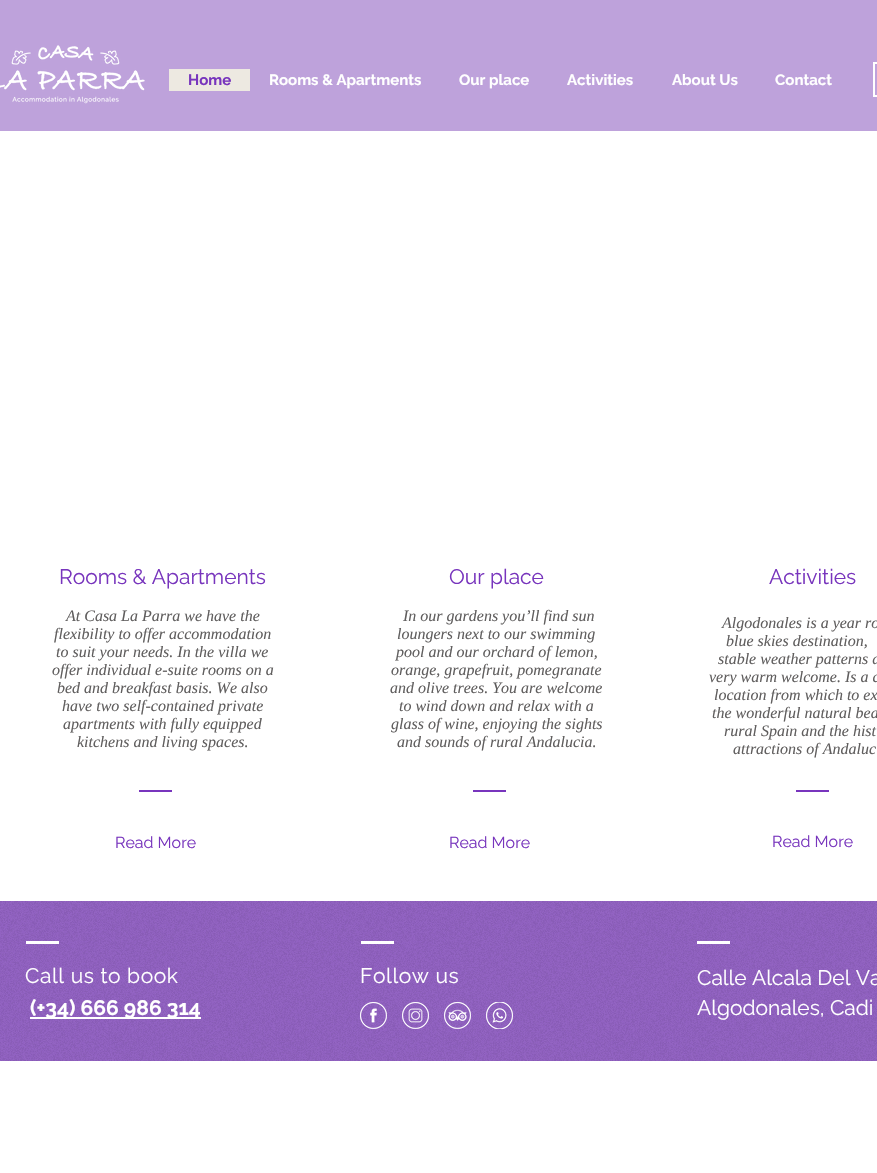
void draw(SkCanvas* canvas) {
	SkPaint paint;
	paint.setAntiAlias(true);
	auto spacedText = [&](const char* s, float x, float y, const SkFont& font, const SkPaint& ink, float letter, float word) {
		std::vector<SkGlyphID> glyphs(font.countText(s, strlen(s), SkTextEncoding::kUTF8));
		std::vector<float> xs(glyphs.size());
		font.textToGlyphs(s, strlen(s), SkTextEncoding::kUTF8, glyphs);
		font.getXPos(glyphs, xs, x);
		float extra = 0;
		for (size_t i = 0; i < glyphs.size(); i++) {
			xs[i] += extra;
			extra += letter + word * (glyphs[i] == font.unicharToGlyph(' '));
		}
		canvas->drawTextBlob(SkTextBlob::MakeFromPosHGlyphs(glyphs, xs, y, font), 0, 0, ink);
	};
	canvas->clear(0xffffffff);
	paint.setColor(0xffbea2db);
	canvas->drawRect(SkRect::MakeXYWH(0, 0, 877, 131), paint);
	canvas->drawImageRect(SkImages::DeferredFromEncodedData(SkData::MakeFromFileName("img1.png")), SkRect::MakeXYWH(0, 45, 145, 59), SkSamplingOptions());
	paint.setColor(0xffede9e1);
	canvas->drawRect(SkRect::MakeXYWH(169, 69, 81, 22), paint);
	SkFont f1(fontMgr->matchFamilyStyle("Raleway", SkFontStyle::Bold()), 15);
	f1.setSubpixel(true);
	paint.setColor(0xff7835bd);
	canvas->drawString("Home", 188, 85, f1, paint);
	paint.setColor(0xffffffff);
	canvas->drawString("Rooms & Apartments", 269, 85, f1, paint);
	canvas->drawString("Our place", 459, 85, f1, paint);
	canvas->drawString("Activities", 567, 85, f1, paint);
	canvas->drawString("About Us", 672, 85, f1, paint);
	canvas->drawString("Contact", 775, 85, f1, paint);
	paint.setStroke(true);
	paint.setStrokeWidth(2);
	canvas->drawRect(SkRect::MakeXYWH(874, 63, 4, 33), paint);
	SkFont f2(fontMgr->matchFamilyStyle("Raleway", SkFontStyle::Normal()), 21);
	f2.setSubpixel(true);
	paint.setStroke(false);
	paint.setColor(0xff7835bd);
	canvas->drawString("Rooms & Apartments", 59, 584, f2, paint);
	SkFont f3(fontMgr->matchFamilyStyle("Liberation Serif", SkFontStyle::Italic()), 16);
	f3.setSubpixel(true);
	paint.setColor(0xff605e5e);
	canvas->drawString("At Casa La Parra we have the", 66, 621, f3, paint);
	canvas->drawString("flexibility to offer accommodation", 54, 639, f3, paint);
	canvas->drawString("to suit your needs. In the villa we", 56, 657, f3, paint);
	canvas->drawString("offer individual e-suite rooms on a", 52, 675, f3, paint);
	canvas->drawString("bed and breakfast basis. We also", 57, 693, f3, paint);
	canvas->drawString("have two self-contained private", 62, 711, f3, paint);
	canvas->drawString("apartments with fully equipped", 63, 729, f3, paint);
	canvas->drawString("kitchens and living spaces.", 77, 747, f3, paint);
	paint.setColor(0xff7835bd);
	canvas->drawRect(SkRect::MakeXYWH(139, 790, 33, 2), paint);
	SkFont f4(fontMgr->matchFamilyStyle("Raleway", SkFontStyle::Normal()), 16);
	f4.setSubpixel(true);
	canvas->drawString("Read More", 115, 848, f4, paint);
	canvas->drawString("Our place", 449, 584, f2, paint);
	paint.setColor(0xff605e5e);
	canvas->drawString("In our gardens you’ll find sun", 403, 621, f3, paint);
	canvas->drawString("loungers next to our swimming", 397, 639, f3, paint);
	canvas->drawString("pool and our orchard of lemon,", 396, 657, f3, paint);
	canvas->drawString("orange, grapefruit, pomegranate", 391, 675, f3, paint);
	canvas->drawString("and olive trees. You are welcome", 390, 693, f3, paint);
	canvas->drawString("to wind down and relax with a", 399, 711, f3, paint);
	canvas->drawString("glass of wine, enjoying the sights", 391, 729, f3, paint);
	canvas->drawString("and sounds of rural Andalucia.", 397, 747, f3, paint);
	paint.setColor(0xff7835bd);
	canvas->drawRect(SkRect::MakeXYWH(473, 790, 33, 2), paint);
	canvas->drawString("Read More", 449, 848, f4, paint);
	canvas->drawString("Activities", 769, 584, f2, paint);
	paint.setColor(0xff605e5e);
	canvas->drawString("Algodonales is a year ro", 722, 628, f3, paint);
	canvas->drawString("blue skies destination,", 726, 646, f3, paint);
	canvas->drawString("stable weather patterns a", 718, 664, f3, paint);
	canvas->drawString("very warm welcome. Is a c", 709, 682, f3, paint);
	canvas->drawString("location from which to ex", 714, 700, f3, paint);
	canvas->drawString("the wonderful natural bea", 712, 718, f3, paint);
	canvas->drawString("rural Spain and the hist", 724, 736, f3, paint);
	canvas->drawString("attractions of Andaluc", 733, 754, f3, paint);
	paint.setColor(0xff7835bd);
	canvas->drawRect(SkRect::MakeXYWH(796, 790, 33, 2), paint);
	canvas->drawString("Read More", 772, 847, f4, paint);
	paint.setColor(0xff9161c2);
	canvas->drawRect(SkRect::MakeXYWH(0, 901, 877, 160), paint);
	canvas->drawImageRect(SkImages::DeferredFromEncodedData(SkData::MakeFromFileName("img2.png")), SkRect::MakeXYWH(0, 901, 877, 160), SkSamplingOptions());
	paint.setColor(0xffffffff);
	canvas->drawRect(SkRect::MakeXYWH(26, 941, 33, 3), paint);
	canvas->drawRect(SkRect::MakeXYWH(361, 941, 33, 3), paint);
	canvas->drawRect(SkRect::MakeXYWH(697, 941, 33, 3), paint);
	spacedText("Call us to book", 25, 983, f2, paint, 0.6, 0);
	canvas->drawRect(SkRect::MakeXYWH(30, 1017, 171, 2), paint);
	SkFont f5(fontMgr->matchFamilyStyle("Raleway", SkFontStyle::Bold()), 21);
	f5.setSubpixel(true);
	canvas->drawString("(+34) 666 986 314", 30, 1015, f5, paint);
	spacedText("Follow us", 360, 983, f2, paint, 0.6, 0);
	canvas->drawString("Calle Alcala Del Va", 697, 985, f2, paint);
	canvas->drawString("Algodonales, Cadi", 697, 1015, f2, paint);
	canvas->drawImageRect(SkImages::DeferredFromEncodedData(SkData::MakeFromFileName("img3.png")), SkRect::MakeXYWH(360, 1002, 27, 27), SkSamplingOptions());
	canvas->drawImageRect(SkImages::DeferredFromEncodedData(SkData::MakeFromFileName("img4.png")), SkRect::MakeXYWH(402, 1002, 27, 27), SkSamplingOptions());
	canvas->drawImageRect(SkImages::DeferredFromEncodedData(SkData::MakeFromFileName("img5.png")), SkRect::MakeXYWH(444, 1002, 27, 27), SkSamplingOptions());
	canvas->drawImageRect(SkImages::DeferredFromEncodedData(SkData::MakeFromFileName("img6.png")), SkRect::MakeXYWH(486, 1002, 27, 27), SkSamplingOptions());
}
